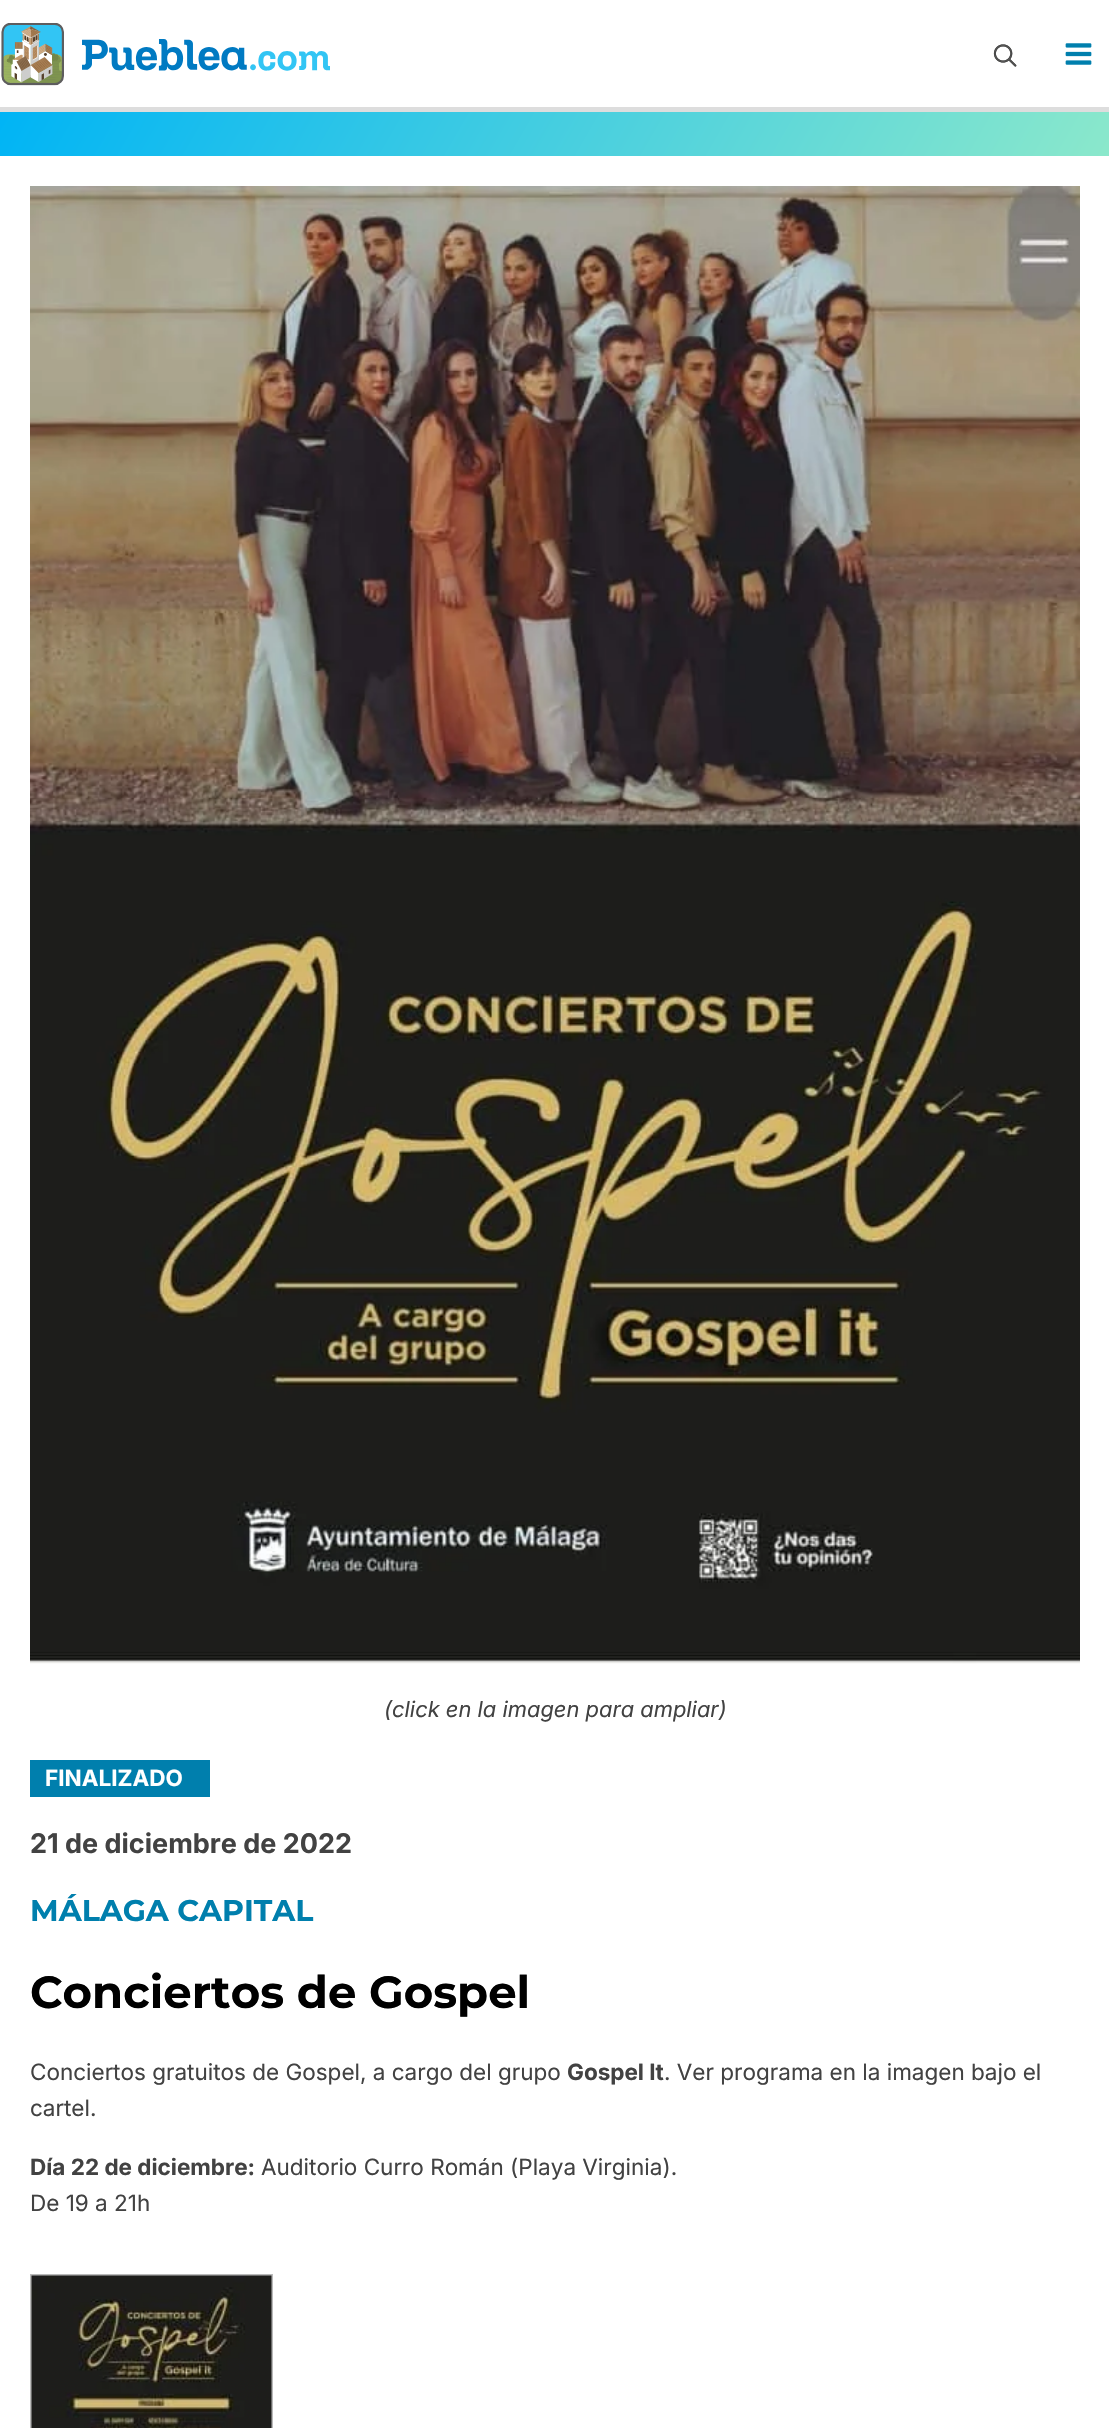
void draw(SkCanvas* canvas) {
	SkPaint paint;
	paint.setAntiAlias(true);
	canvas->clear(0xffffffff);
	paint.setColor(0xffdddddd);
	canvas->drawRect(SkRect::MakeXYWH(0, 107, 1109, 5), paint);
	canvas->drawImageRect(SkImages::DeferredFromEncodedData(SkData::MakeFromFileName("img1.png")), SkRect::MakeXYWH(1, 23, 329, 63), SkSamplingOptions());
	canvas->drawImageRect(SkImages::DeferredFromEncodedData(SkData::MakeFromFileName("img2.png")), SkRect::MakeXYWH(993, 44, 24, 23), SkSamplingOptions());
	canvas->drawImageRect(SkImages::DeferredFromEncodedData(SkData::MakeFromFileName("img3.png")), SkRect::MakeXYWH(1065, 43, 27, 22), SkSamplingOptions());
	{
		const SkColor colors[] = {0xff00b4f5, 0xff8be8cb};
		const float stops[] = {0, 1};
		const SkPoint ends[] = {{129, -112}, {981, 379}};
		paint.setShader(SkGradientShader::MakeLinear(ends, colors, stops, 2, SkTileMode::kClamp));
		paint.setAlpha(255);
	}
	canvas->drawRect(SkRect::MakeXYWH(0, 112, 1109, 44), paint);
	canvas->drawImageRect(SkImages::DeferredFromEncodedData(SkData::MakeFromFileName("img4.png")), SkRect::MakeXYWH(30, 186, 1050, 1478), SkSamplingOptions());
	SkFont f1(fontMgr->matchFamilyStyle("Inter", SkFontStyle::Italic()), 21.9);
	f1.setSubpixel(true);
	paint.setShader(nullptr);
	paint.setColor(0xff424242);
	canvas->drawString("(click en la imagen para ampliar)", 384, 1717, f1, paint);
	paint.setColor(0xff007fad);
	canvas->drawRect(SkRect::MakeXYWH(30, 1760, 180, 37), paint);
	SkFont f2(fontMgr->matchFamilyStyle("Inter", SkFontStyle::Bold()), 22.5);
	f2.setSubpixel(true);
	paint.setColor(0xffffffff);
	canvas->drawString("FINALIZADO", 45, 1786, f2, paint);
	SkFont f3(fontMgr->matchFamilyStyle("Inter", SkFontStyle::Bold()), 27);
	f3.setSubpixel(true);
	paint.setColor(0xff424242);
	canvas->drawString("21 de diciembre de 2022", 30, 1853, f3, paint);
	SkFont f4(fontMgr->matchFamilyStyle("Montserrat", SkFontStyle(100, SkFontStyle::kNormal_Width, SkFontStyle::kUpright_Slant)), 30);
	f4.setSubpixel(true);
	paint.setColor(0xff007fad);
	canvas->drawString("MÁLAGA CAPITAL", 30, 1921, f4, paint);
	SkFont f5(fontMgr->matchFamilyStyle("Montserrat", SkFontStyle(100, SkFontStyle::kNormal_Width, SkFontStyle::kUpright_Slant)), 45);
	f5.setSubpixel(true);
	paint.setColor(0xff000000);
	canvas->drawString("Conciertos de Gospel", 30, 2008, f5, paint);
	SkFont f6(fontMgr->matchFamilyStyle("Inter", SkFontStyle::Normal()), 22.5);
	f6.setSubpixel(true);
	paint.setColor(0xff424242);
	canvas->drawString("Conciertos gratuitos de Gospel, a cargo del grupo", 30, 2080, f6, paint);
	canvas->drawString("Gospel It", 567, 2080, f2, paint);
	canvas->drawString(". Ver programa en la imagen bajo el", 664, 2080, f6, paint);
	canvas->drawString("cartel.", 30, 2116, f6, paint);
	canvas->drawString("Día 22 de diciembre:", 30, 2175, f2, paint);
	canvas->drawString("Auditorio Curro Román (Playa Virginia).", 261, 2175, f6, paint);
	canvas->drawString("De 19 a 21h", 30, 2211, f6, paint);
	paint.setStroke(true);
	paint.setStrokeWidth(2);
	paint.setColor(0xffbababa);
	canvas->drawRect(SkRect::MakeXYWH(31, 2275, 241, 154), paint);
	canvas->drawImageRect(SkImages::DeferredFromEncodedData(SkData::MakeFromFileName("img5.png")), SkRect::MakeXYWH(31, 2275, 241, 153), SkSamplingOptions());
}
